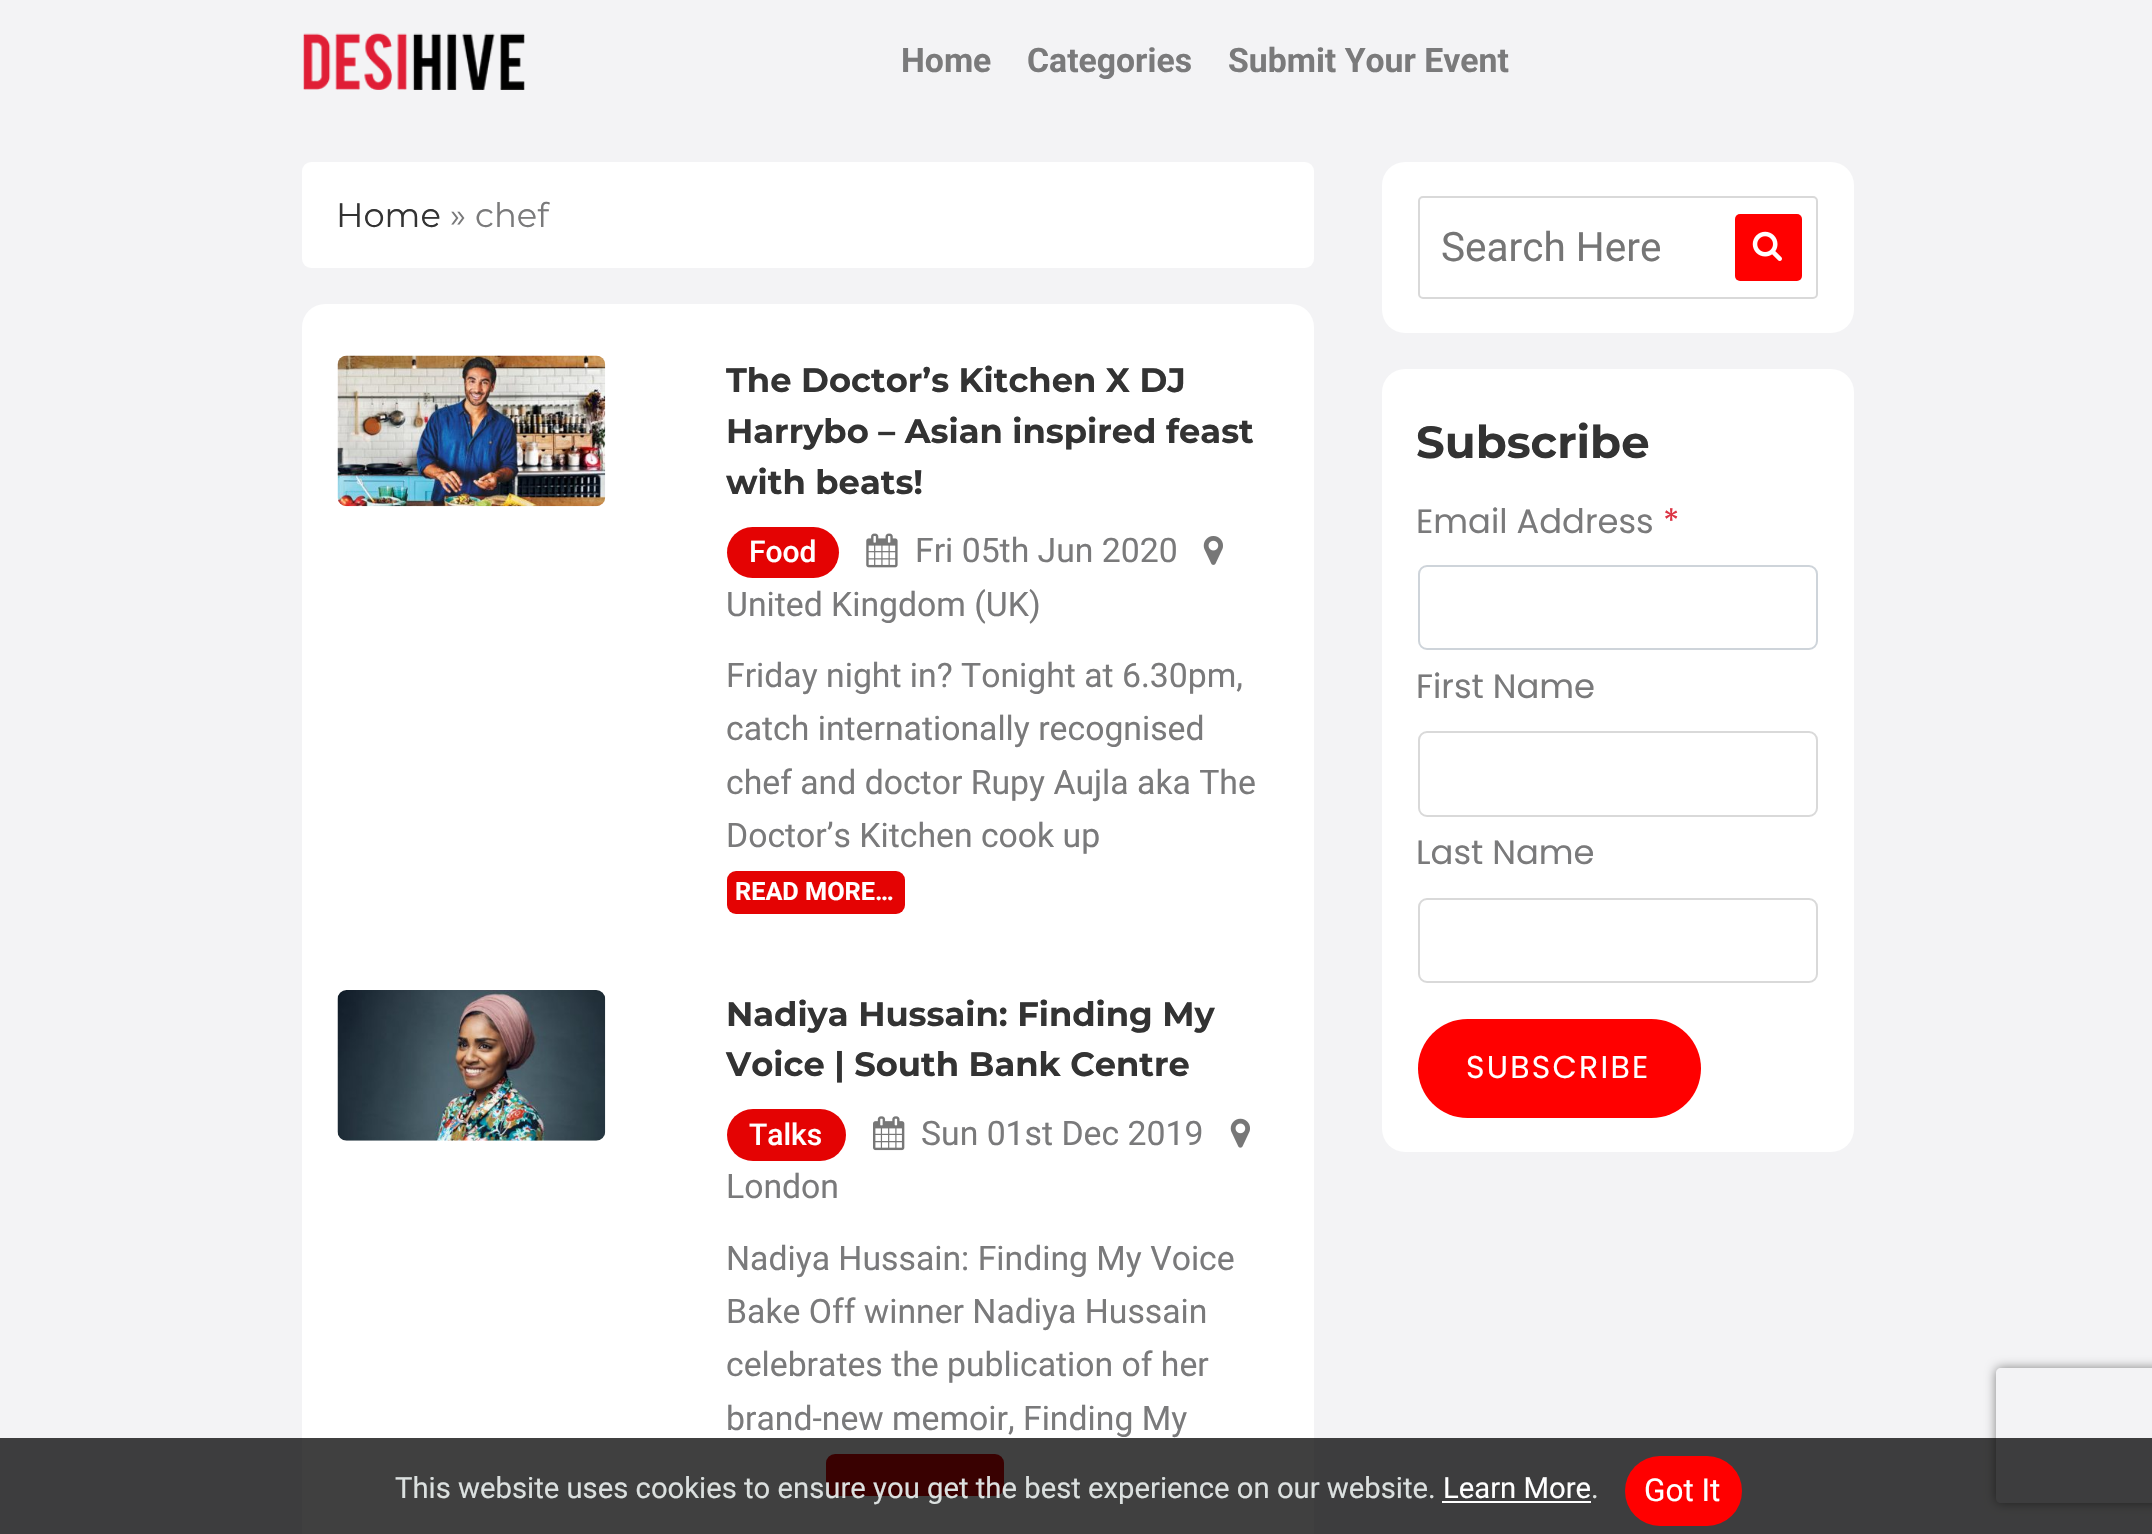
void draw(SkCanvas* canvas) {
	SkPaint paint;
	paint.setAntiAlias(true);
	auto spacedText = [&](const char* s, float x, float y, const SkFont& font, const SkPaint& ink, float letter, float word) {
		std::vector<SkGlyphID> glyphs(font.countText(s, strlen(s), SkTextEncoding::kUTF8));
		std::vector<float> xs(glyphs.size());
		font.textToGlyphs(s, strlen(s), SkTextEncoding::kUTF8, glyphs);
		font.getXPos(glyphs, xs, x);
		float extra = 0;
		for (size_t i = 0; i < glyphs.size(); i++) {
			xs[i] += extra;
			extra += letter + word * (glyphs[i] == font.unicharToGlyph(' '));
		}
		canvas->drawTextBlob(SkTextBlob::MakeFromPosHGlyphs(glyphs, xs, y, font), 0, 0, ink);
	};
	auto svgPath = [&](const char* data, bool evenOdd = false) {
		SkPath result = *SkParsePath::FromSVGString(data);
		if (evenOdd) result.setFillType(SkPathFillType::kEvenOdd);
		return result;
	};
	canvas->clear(0xfff3f3f5);
	canvas->drawImageRect(SkImages::DeferredFromEncodedData(SkData::MakeFromFileName("img1.png")), SkRect::MakeXYWH(303, 33, 222, 57), SkSamplingOptions());
	SkFont f1(fontMgr->matchFamilyStyle("Roboto", SkFontStyle::Bold()), 33.75);
	f1.setSubpixel(true);
	paint.setColor(0xff7a7a7b);
	canvas->drawString("Home", 901, 72, f1, paint);
	canvas->drawString("Categories", 1027, 72, f1, paint);
	canvas->drawString("Submit Your Event", 1228, 72, f1, paint);
	paint.setColor(0xffffffff);
	canvas->drawRoundRect(SkRect::MakeXYWH(302, 162, 1012, 106), 9, 9, paint);
	SkFont f2(fontMgr->matchFamilyStyle("Montserrat", SkFontStyle::Normal()), 33.75);
	f2.setSubpixel(true);
	paint.setColor(0xff333333);
	canvas->drawString("Home", 336, 227, f2, paint);
	paint.setColor(0xff7a7a7b);
	canvas->drawString("» chef", 450, 227, f2, paint);
	paint.setColor(0xffffffff);
	canvas->drawRoundRect(SkRect::MakeXYWH(302, 304, 1012, 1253), 23, 23, paint);
	canvas->drawImageRect(SkImages::DeferredFromEncodedData(SkData::MakeFromFileName("img2.png")), SkRect::MakeXYWH(337, 355, 269, 152), SkSamplingOptions());
	SkFont f3(fontMgr->matchFamilyStyle("Montserrat", SkFontStyle::Bold()), 33.75);
	f3.setSubpixel(true);
	paint.setColor(0xff333333);
	canvas->drawString("The Doctor’s Kitchen X DJ", 726, 392, f3, paint);
	canvas->drawString("Harrybo – Asian inspired feast", 726, 443, f3, paint);
	canvas->drawString("with beats!", 726, 494, f3, paint);
	paint.setColor(0xffe40303);
	canvas->drawRoundRect(SkRect::MakeXYWH(727, 527, 112, 51), 25.5, 25.5, paint);
	SkFont f4(fontMgr->matchFamilyStyle("Roboto", SkFontStyle(500, SkFontStyle::kNormal_Width, SkFontStyle::kUpright_Slant)), 30);
	f4.setSubpixel(true);
	paint.setColor(0xffffffff);
	canvas->drawString("Food", 749, 562, f4, paint);
	canvas->drawImageRect(SkImages::DeferredFromEncodedData(SkData::MakeFromFileName("img3.png")), SkRect::MakeXYWH(866, 533, 32, 35), SkSamplingOptions());
	SkFont f5(fontMgr->matchFamilyStyle("Roboto", SkFontStyle::Normal()), 33.75);
	f5.setSubpixel(true);
	paint.setColor(0xff7a7a7b);
	canvas->drawString("Fri 05th Jun 2020", 915, 562, f5, paint);
	canvas->drawImageRect(SkImages::DeferredFromEncodedData(SkData::MakeFromFileName("img4.png")), SkRect::MakeXYWH(1203, 536, 20, 29), SkSamplingOptions());
	canvas->drawString("United Kingdom (UK)", 726, 616, f5, paint);
	canvas->drawString("Friday night in? Tonight at 6.30pm,", 726, 687, f5, paint);
	canvas->drawString("catch internationally recognised", 726, 740, f5, paint);
	canvas->drawString("chef and doctor Rupy Aujla aka The", 726, 794, f5, paint);
	canvas->drawString("Doctor’s Kitchen cook up", 726, 847, f5, paint);
	paint.setColor(0xffe40303);
	canvas->drawRoundRect(SkRect::MakeXYWH(727, 871, 178, 43), 9, 9, paint);
	SkFont f6(fontMgr->matchFamilyStyle("Roboto", SkFontStyle::Bold()), 25.25);
	f6.setSubpixel(true);
	paint.setColor(0xffffffff);
	canvas->drawString("READ MORE…", 735, 900, f6, paint);
	canvas->drawImageRect(SkImages::DeferredFromEncodedData(SkData::MakeFromFileName("img5.png")), SkRect::MakeXYWH(337, 990, 269, 151), SkSamplingOptions());
	paint.setColor(0xff333333);
	canvas->drawString("Nadiya Hussain: Finding My", 726, 1026, f3, paint);
	canvas->drawString("Voice | South Bank Centre", 726, 1076, f3, paint);
	paint.setColor(0xffe40303);
	canvas->drawRoundRect(SkRect::MakeXYWH(727, 1109, 119, 52), 26, 26, paint);
	paint.setColor(0xffffffff);
	canvas->drawString("Talks", 749, 1145, f4, paint);
	canvas->drawImageRect(SkImages::DeferredFromEncodedData(SkData::MakeFromFileName("img6.png")), SkRect::MakeXYWH(873, 1116, 32, 35), SkSamplingOptions());
	paint.setColor(0xff7a7a7b);
	canvas->drawString("Sun 01st Dec 2019", 921, 1145, f5, paint);
	canvas->drawImageRect(SkImages::DeferredFromEncodedData(SkData::MakeFromFileName("img7.png")), SkRect::MakeXYWH(1230, 1118, 20, 30), SkSamplingOptions());
	canvas->drawString("London", 726, 1198, f5, paint);
	canvas->drawString("Nadiya Hussain: Finding My Voice", 726, 1270, f5, paint);
	canvas->drawString("Bake Off winner Nadiya Hussain", 726, 1323, f5, paint);
	canvas->drawString("celebrates the publication of her", 726, 1376, f5, paint);
	canvas->drawString("brand-new memoir, Finding My", 726, 1430, f5, paint);
	paint.setColor(0xffe40303);
	canvas->drawRoundRect(SkRect::MakeXYWH(826, 1454, 178, 42), 9, 9, paint);
	paint.setColor(0xffffffff);
	canvas->drawRoundRect(SkRect::MakeXYWH(1382, 162, 472, 171), 23, 23, paint);
	paint.setStroke(true);
	paint.setStrokeWidth(2);
	paint.setColor(0xffd9d9d9);
	canvas->drawRoundRect(SkRect::MakeXYWH(1419, 197, 398, 101), 4, 4, paint);
	SkFont f7(fontMgr->matchFamilyStyle("Roboto", SkFontStyle::Normal()), 40.5);
	f7.setSubpixel(true);
	paint.setStroke(false);
	paint.setColor(0xff757575);
	canvas->drawString("Search Here", 1441, 261, f7, paint);
	paint.setColor(0xffff0000);
	canvas->drawRoundRect(SkRect::MakeXYWH(1735, 214, 67, 67), 5, 5, paint);
	canvas->drawImageRect(SkImages::DeferredFromEncodedData(SkData::MakeFromFileName("img8.png")), SkRect::MakeXYWH(1752, 231, 30, 30), SkSamplingOptions());
	paint.setColor(0xffffffff);
	canvas->drawRoundRect(SkRect::MakeXYWH(1382, 369, 472, 783), 23, 23, paint);
	SkFont f8(fontMgr->matchFamilyStyle("Montserrat", SkFontStyle::Bold()), 45);
	f8.setSubpixel(true);
	paint.setColor(0xff333333);
	canvas->drawString("Subscribe", 1416, 458, f8, paint);
	SkFont f9(fontMgr->matchFamilyStyle("Poppins", SkFontStyle::Normal()), 33.75);
	f9.setSubpixel(true);
	paint.setColor(0xff7a7a7b);
	canvas->drawString("Email Address", 1416, 533, f9, paint);
	paint.setColor(0xffdc3545);
	canvas->drawString("*", 1663, 533, f9, paint);
	paint.setStroke(true);
	paint.setColor(0xffced4da);
	canvas->drawRoundRect(SkRect::MakeXYWH(1419, 566, 398, 83), 8, 8, paint);
	paint.setStroke(false);
	paint.setColor(0xff7a7a7b);
	canvas->drawString("First Name", 1416, 698, f9, paint);
	paint.setStroke(true);
	paint.setColor(0xffd9d9d9);
	canvas->drawRoundRect(SkRect::MakeXYWH(1419, 732, 398, 84), 8, 8, paint);
	paint.setStroke(false);
	paint.setColor(0xff7a7a7b);
	canvas->drawString("Last Name", 1416, 864, f9, paint);
	paint.setStroke(true);
	paint.setColor(0xffd9d9d9);
	canvas->drawRoundRect(SkRect::MakeXYWH(1419, 899, 398, 83), 8, 8, paint);
	paint.setStroke(false);
	paint.setColor(0xffff0000);
	canvas->drawRoundRect(SkRect::MakeXYWH(1418, 1019, 283, 99), 49.5, 49.5, paint);
	SkFont f10(fontMgr->matchFamilyStyle("Poppins", SkFontStyle::Normal()), 31.5);
	f10.setSubpixel(true);
	paint.setColor(0xffffffff);
	spacedText("SUBSCRIBE", 1466, 1078, f10, paint, 2.25, 0);
	canvas->save();
	canvas->clipPath(svgPath("M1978 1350H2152V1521H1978ZM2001 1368H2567C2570 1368 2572 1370 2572 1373V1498C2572 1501 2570 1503 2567 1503H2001C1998 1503 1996 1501 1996 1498V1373C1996 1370 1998 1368 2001 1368Z", true), true);
	paint.setColor(0xff808080);
	paint.setMaskFilter(SkMaskFilter::MakeBlur(kNormal_SkBlurStyle, 5.5));
	canvas->drawRoundRect(SkRect::MakeXYWH(1996, 1368, 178, 135), 5, 5, paint);
	paint.setMaskFilter(nullptr);
	canvas->restore();
	paint.setColor(0xbf000000);
	canvas->drawRect(SkRect::MakeXYWH(0, 1438, 2152, 96), paint);
	SkFont f11(fontMgr->matchFamilyStyle("Roboto", SkFontStyle::Normal()), 29.25);
	f11.setSubpixel(true);
	paint.setColor(0xffdbe0df);
	canvas->drawString("This website uses cookies to ensure you get the best experience on our website.", 395, 1498, f11, paint);
	paint.setColor(0xffffffff);
	canvas->drawString("Learn More", 1443, 1498, f11, paint);
	canvas->drawRect(SkRect::MakeXYWH(1442, 1501, 149, 2), paint);
	paint.setColor(0xffdbe0df);
	canvas->drawString(".", 1591, 1498, f11, paint);
	paint.setColor(0xffff0000);
	canvas->drawRoundRect(SkRect::MakeXYWH(1625, 1456, 117, 70), 35, 35, paint);
	SkFont f12(fontMgr->matchFamilyStyle("Roboto", SkFontStyle::Normal()), 31.5);
	f12.setSubpixel(true);
	paint.setColor(0xffffffff);
	canvas->drawString("Got It", 1644, 1501, f12, paint);
}
